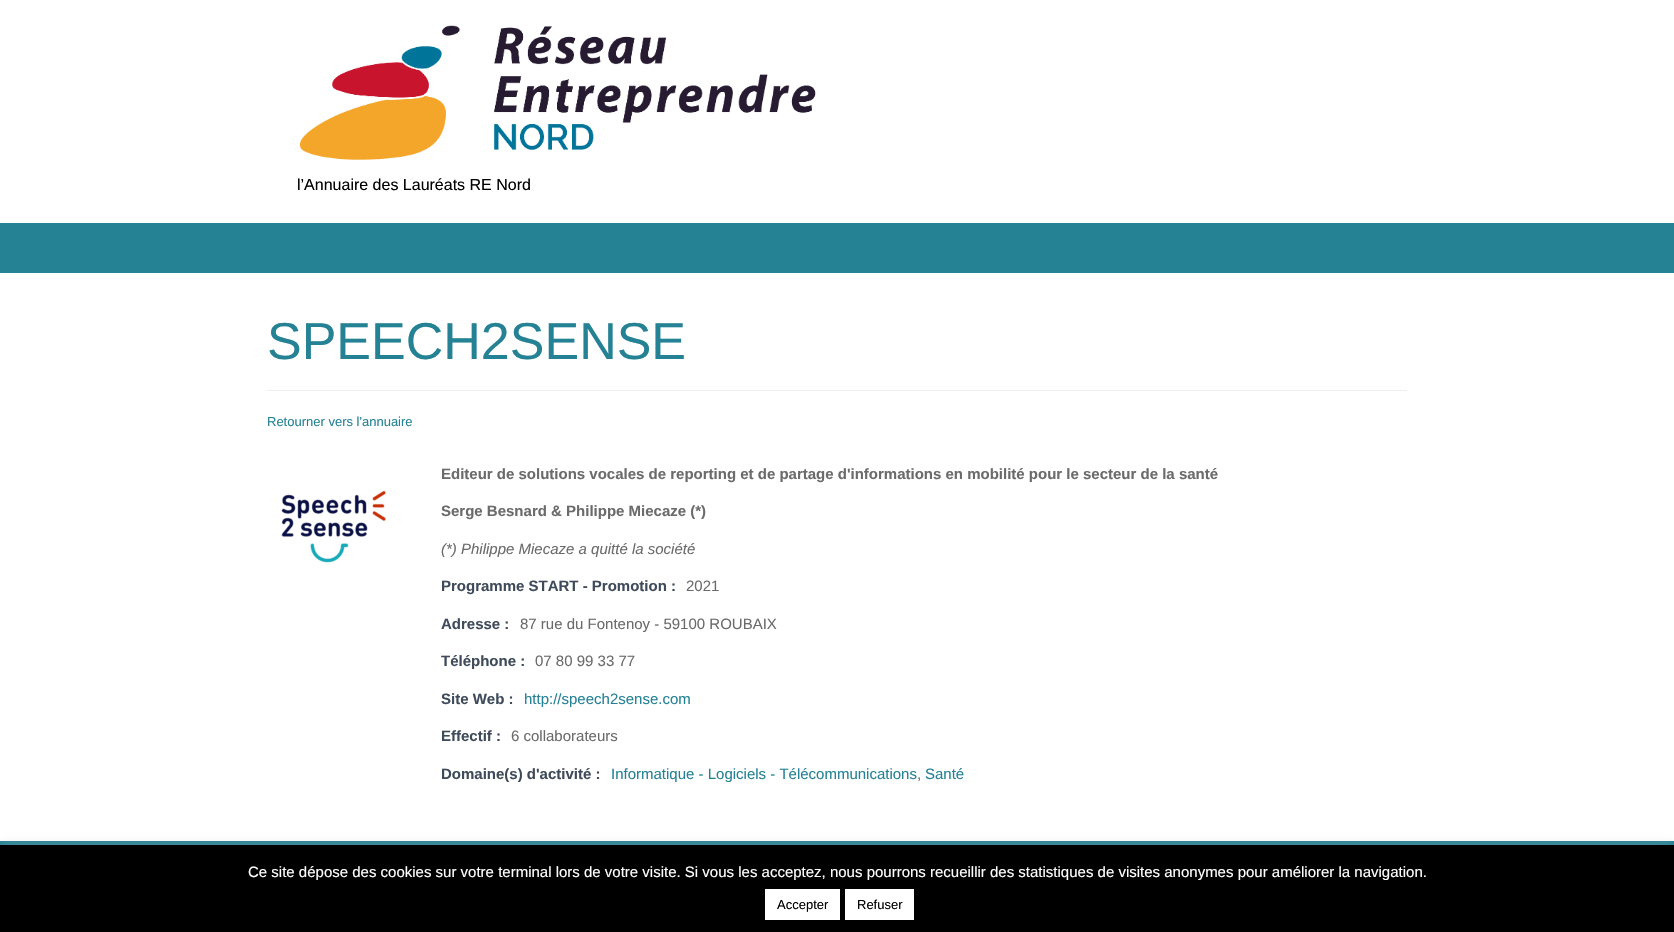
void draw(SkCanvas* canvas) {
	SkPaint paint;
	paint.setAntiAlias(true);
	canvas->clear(0xffffffff);
	canvas->drawImageRect(SkImages::DeferredFromEncodedData(SkData::MakeFromFileName("img1.png")), SkRect::MakeXYWH(299, 25, 517, 135), SkSamplingOptions());
	SkFont f1(fontMgr->matchFamilyStyle("Liberation Sans", SkFontStyle::Normal()), 16);
	f1.setSubpixel(true);
	paint.setColor(0xff000000);
	canvas->drawString("l’Annuaire des Lauréats RE Nord", 297, 190, f1, paint);
	paint.setColor(0xff258294);
	canvas->drawRect(SkRect::MakeXYWH(0, 223, 1674, 50), paint);
	paint.setColor(0xffeeeeee);
	canvas->drawRect(SkRect::MakeXYWH(267, 390, 1140, 1), paint);
	SkFont f2(fontMgr->matchFamilyStyle("Liberation Sans", SkFontStyle::Normal()), 52);
	f2.setSubpixel(true);
	paint.setColor(0xff258294);
	canvas->drawString("SPEECH2SENSE", 267, 359, f2, paint);
	SkFont f3(fontMgr->matchFamilyStyle("Liberation Sans", SkFontStyle::Normal()), 13);
	f3.setSubpixel(true);
	canvas->drawString("Retourner vers l'annuaire", 267, 426, f3, paint);
	canvas->drawImageRect(SkImages::DeferredFromEncodedData(SkData::MakeFromFileName("img2.png")), SkRect::MakeXYWH(281, 490, 105, 73), SkSamplingOptions());
	SkFont f4(fontMgr->matchFamilyStyle("Liberation Sans", SkFontStyle::Bold()), 15);
	f4.setSubpixel(true);
	paint.setColor(0xff6b6b6b);
	canvas->drawString("Editeur de solutions vocales de reporting et de partage d'informations en mobilité pour le secteur de la santé", 441, 479, f4, paint);
	canvas->drawString("Serge Besnard & Philippe Miecaze (*)", 441, 516, f4, paint);
	SkFont f5(fontMgr->matchFamilyStyle("Liberation Sans", SkFontStyle::Italic()), 15);
	f5.setSubpixel(true);
	canvas->drawString("(*) Philippe Miecaze a quitté la société", 441, 554, f5, paint);
	paint.setColor(0xff3f4b5b);
	canvas->drawString("Programme START - Promotion :", 441, 591, f4, paint);
	SkFont f6(fontMgr->matchFamilyStyle("Liberation Sans", SkFontStyle::Normal()), 15);
	f6.setSubpixel(true);
	paint.setColor(0xff6b6b6b);
	canvas->drawString("2021", 686, 591, f6, paint);
	paint.setColor(0xff3f4b5b);
	canvas->drawString("Adresse :", 441, 629, f4, paint);
	paint.setColor(0xff6b6b6b);
	canvas->drawString("87 rue du Fontenoy - 59100 ROUBAIX", 520, 629, f6, paint);
	paint.setColor(0xff3f4b5b);
	canvas->drawString("Téléphone :", 441, 666, f4, paint);
	paint.setColor(0xff6b6b6b);
	canvas->drawString("07 80 99 33 77", 535, 666, f6, paint);
	paint.setColor(0xff3f4b5b);
	canvas->drawString("Site Web :", 441, 704, f4, paint);
	paint.setColor(0xff258294);
	canvas->drawString("http://speech2sense.com", 524, 704, f6, paint);
	paint.setColor(0xff3f4b5b);
	canvas->drawString("Effectif :", 441, 741, f4, paint);
	paint.setColor(0xff6b6b6b);
	canvas->drawString("6 collaborateurs", 511, 741, f6, paint);
	paint.setColor(0xff3f4b5b);
	canvas->drawString("Domaine(s) d'activité :", 441, 779, f4, paint);
	paint.setColor(0xff258294);
	canvas->drawString("Informatique - Logiciels - Télécommunications", 611, 779, f6, paint);
	paint.setColor(0xff6b6b6b);
	canvas->drawString(",", 917, 779, f6, paint);
	paint.setColor(0xff258294);
	canvas->drawString("Santé", 925, 779, f6, paint);
	canvas->drawRect(SkRect::MakeXYWH(0, 841, 1674, 4), paint);
	paint.setColor(0x4dacabab);
	paint.setMaskFilter(SkMaskFilter::MakeBlur(kNormal_SkBlurStyle, 5));
	canvas->drawRect(SkRect::MakeXYWH(0, 844, 1674, 87), paint);
	paint.setMaskFilter(nullptr);
	paint.setColor(0xff000000);
	canvas->drawRect(SkRect::MakeXYWH(0, 845, 1674, 87), paint);
	paint.setColor(0xffffffff);
	canvas->drawString("Ce site dépose des cookies sur votre terminal lors de votre visite. Si vous les acceptez, nous pourrons recueillir des statistiques de visites anonymes pour améliorer la navigation.", 248, 877, f6, paint);
	canvas->drawRect(SkRect::MakeXYWH(765, 889, 75, 31), paint);
	paint.setColor(0xff000000);
	canvas->drawString("Accepter", 777, 909, f3, paint);
	paint.setColor(0xffffffff);
	canvas->drawRect(SkRect::MakeXYWH(845, 889, 69, 31), paint);
	paint.setColor(0xff000000);
	canvas->drawString("Refuser", 857, 909, f3, paint);
}
